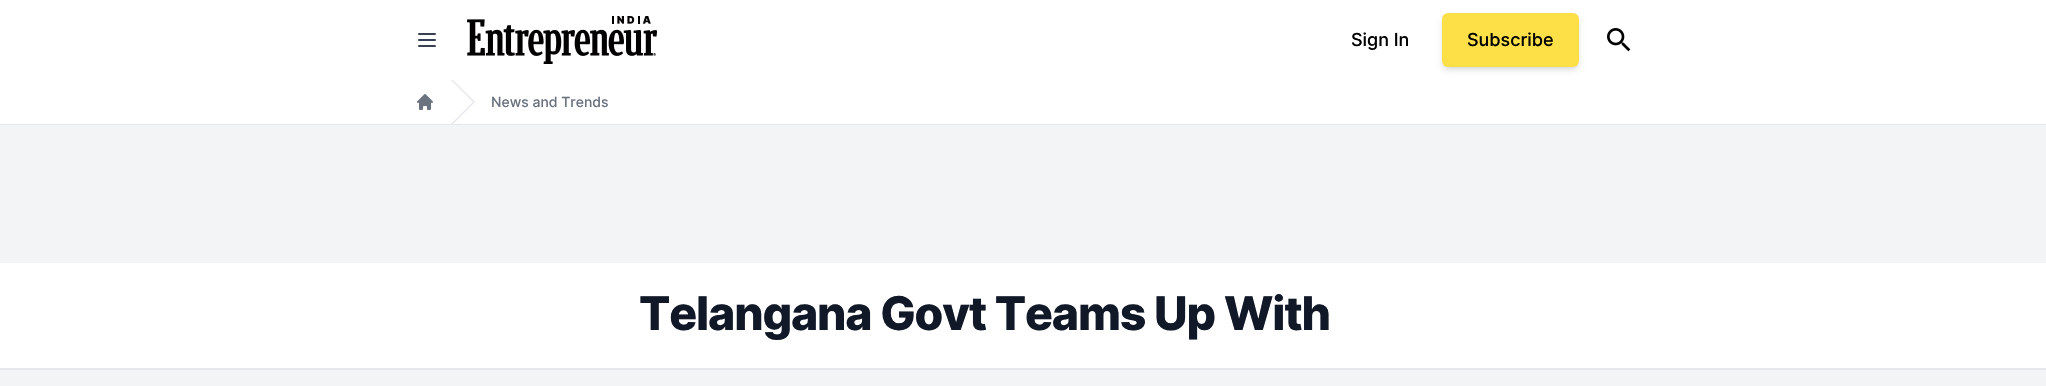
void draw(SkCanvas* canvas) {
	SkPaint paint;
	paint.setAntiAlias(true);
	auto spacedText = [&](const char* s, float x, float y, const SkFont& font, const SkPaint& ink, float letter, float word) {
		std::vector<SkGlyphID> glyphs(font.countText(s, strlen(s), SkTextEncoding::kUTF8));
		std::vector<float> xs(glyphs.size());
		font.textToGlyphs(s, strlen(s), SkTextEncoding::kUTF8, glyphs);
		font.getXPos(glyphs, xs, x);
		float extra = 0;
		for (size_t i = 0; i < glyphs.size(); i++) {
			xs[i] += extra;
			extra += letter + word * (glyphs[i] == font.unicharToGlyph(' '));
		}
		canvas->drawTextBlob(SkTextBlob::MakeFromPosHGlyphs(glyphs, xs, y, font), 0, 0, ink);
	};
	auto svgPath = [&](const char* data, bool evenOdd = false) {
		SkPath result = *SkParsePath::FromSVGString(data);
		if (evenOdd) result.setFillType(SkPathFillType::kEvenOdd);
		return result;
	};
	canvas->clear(0xffffffff);
	paint.setStroke(true);
	paint.setStrokeWidth(2);
	paint.setStrokeCap(SkPaint::kRound_Cap);
	paint.setStrokeJoin(SkPaint::kRound_Join);
	paint.setColor(0xff374151);
	canvas->drawPath(svgPath("M419 34H435M419 40H435M419 46H435"), paint);
	canvas->drawImageRect(SkImages::DeferredFromEncodedData(SkData::MakeFromFileName("img1.png")), SkRect::MakeXYWH(467, 16, 190, 48), SkSamplingOptions());
	SkFont f1(fontMgr->matchFamilyStyle("Inter", SkFontStyle(500, SkFontStyle::kNormal_Width, SkFontStyle::kUpright_Slant)), 18);
	f1.setSubpixel(true);
	paint.setStroke(false);
	paint.setColor(0xff000000);
	canvas->drawString("Sign In", 1351, 46, f1, paint);
	paint.setColor(0x1a000000);
	paint.setMaskFilter(SkMaskFilter::MakeBlur(kNormal_SkBlurStyle, 2));
	canvas->drawRoundRect(SkRect::MakeXYWH(1444, 17, 133, 50), 4, 4, paint);
	paint.setMaskFilter(nullptr);
	paint.setMaskFilter(SkMaskFilter::MakeBlur(kNormal_SkBlurStyle, 3));
	canvas->drawRoundRect(SkRect::MakeXYWH(1443, 18, 135, 52), 5, 5, paint);
	paint.setMaskFilter(nullptr);
	paint.setColor(0xfffde047);
	canvas->drawRoundRect(SkRect::MakeXYWH(1442, 13, 137, 54), 6, 6, paint);
	paint.setColor(0xff000000);
	canvas->drawString("Subscribe", 1467, 46, f1, paint);
	canvas->drawImageRect(SkImages::DeferredFromEncodedData(SkData::MakeFromFileName("img2.png")), SkRect::MakeXYWH(1607, 28, 24, 24), SkSamplingOptions());
	paint.setColor(0xffe5e7eb);
	canvas->drawRect(SkRect::MakeXYWH(0, 124, 2046, 1), paint);
	canvas->drawImageRect(SkImages::DeferredFromEncodedData(SkData::MakeFromFileName("img3.png")), SkRect::MakeXYWH(417, 94, 16, 16), SkSamplingOptions());
	canvas->drawPath(svgPath("M451 80L473 102L451 124H453L475 102L453 80Z"), paint);
	SkFont f2(fontMgr->matchFamilyStyle("Inter", SkFontStyle(500, SkFontStyle::kNormal_Width, SkFontStyle::kUpright_Slant)), 14);
	f2.setSubpixel(true);
	paint.setColor(0xff6b7280);
	canvas->drawString("News and Trends", 491, 107, f2, paint);
	paint.setColor(0xfff3f4f6);
	canvas->drawRect(SkRect::MakeXYWH(0, 125, 2046, 138), paint);
	SkFont f3(fontMgr->matchFamilyStyle("Inter", SkFontStyle(800, SkFontStyle::kNormal_Width, SkFontStyle::kUpright_Slant)), 46.4);
	f3.setSubpixel(true);
	paint.setColor(0xff111827);
	spacedText("Telangana Govt Teams Up With", 639, 330, f3, paint, -1.15, 0);
	paint.setColor(0xfff3f4f6);
	canvas->drawRect(SkRect::MakeXYWH(0, 370, 2046, 16), paint);
	paint.setColor(0xffe5e7eb);
	canvas->drawRect(SkRect::MakeXYWH(0, 368, 2046, 2), paint);
}
